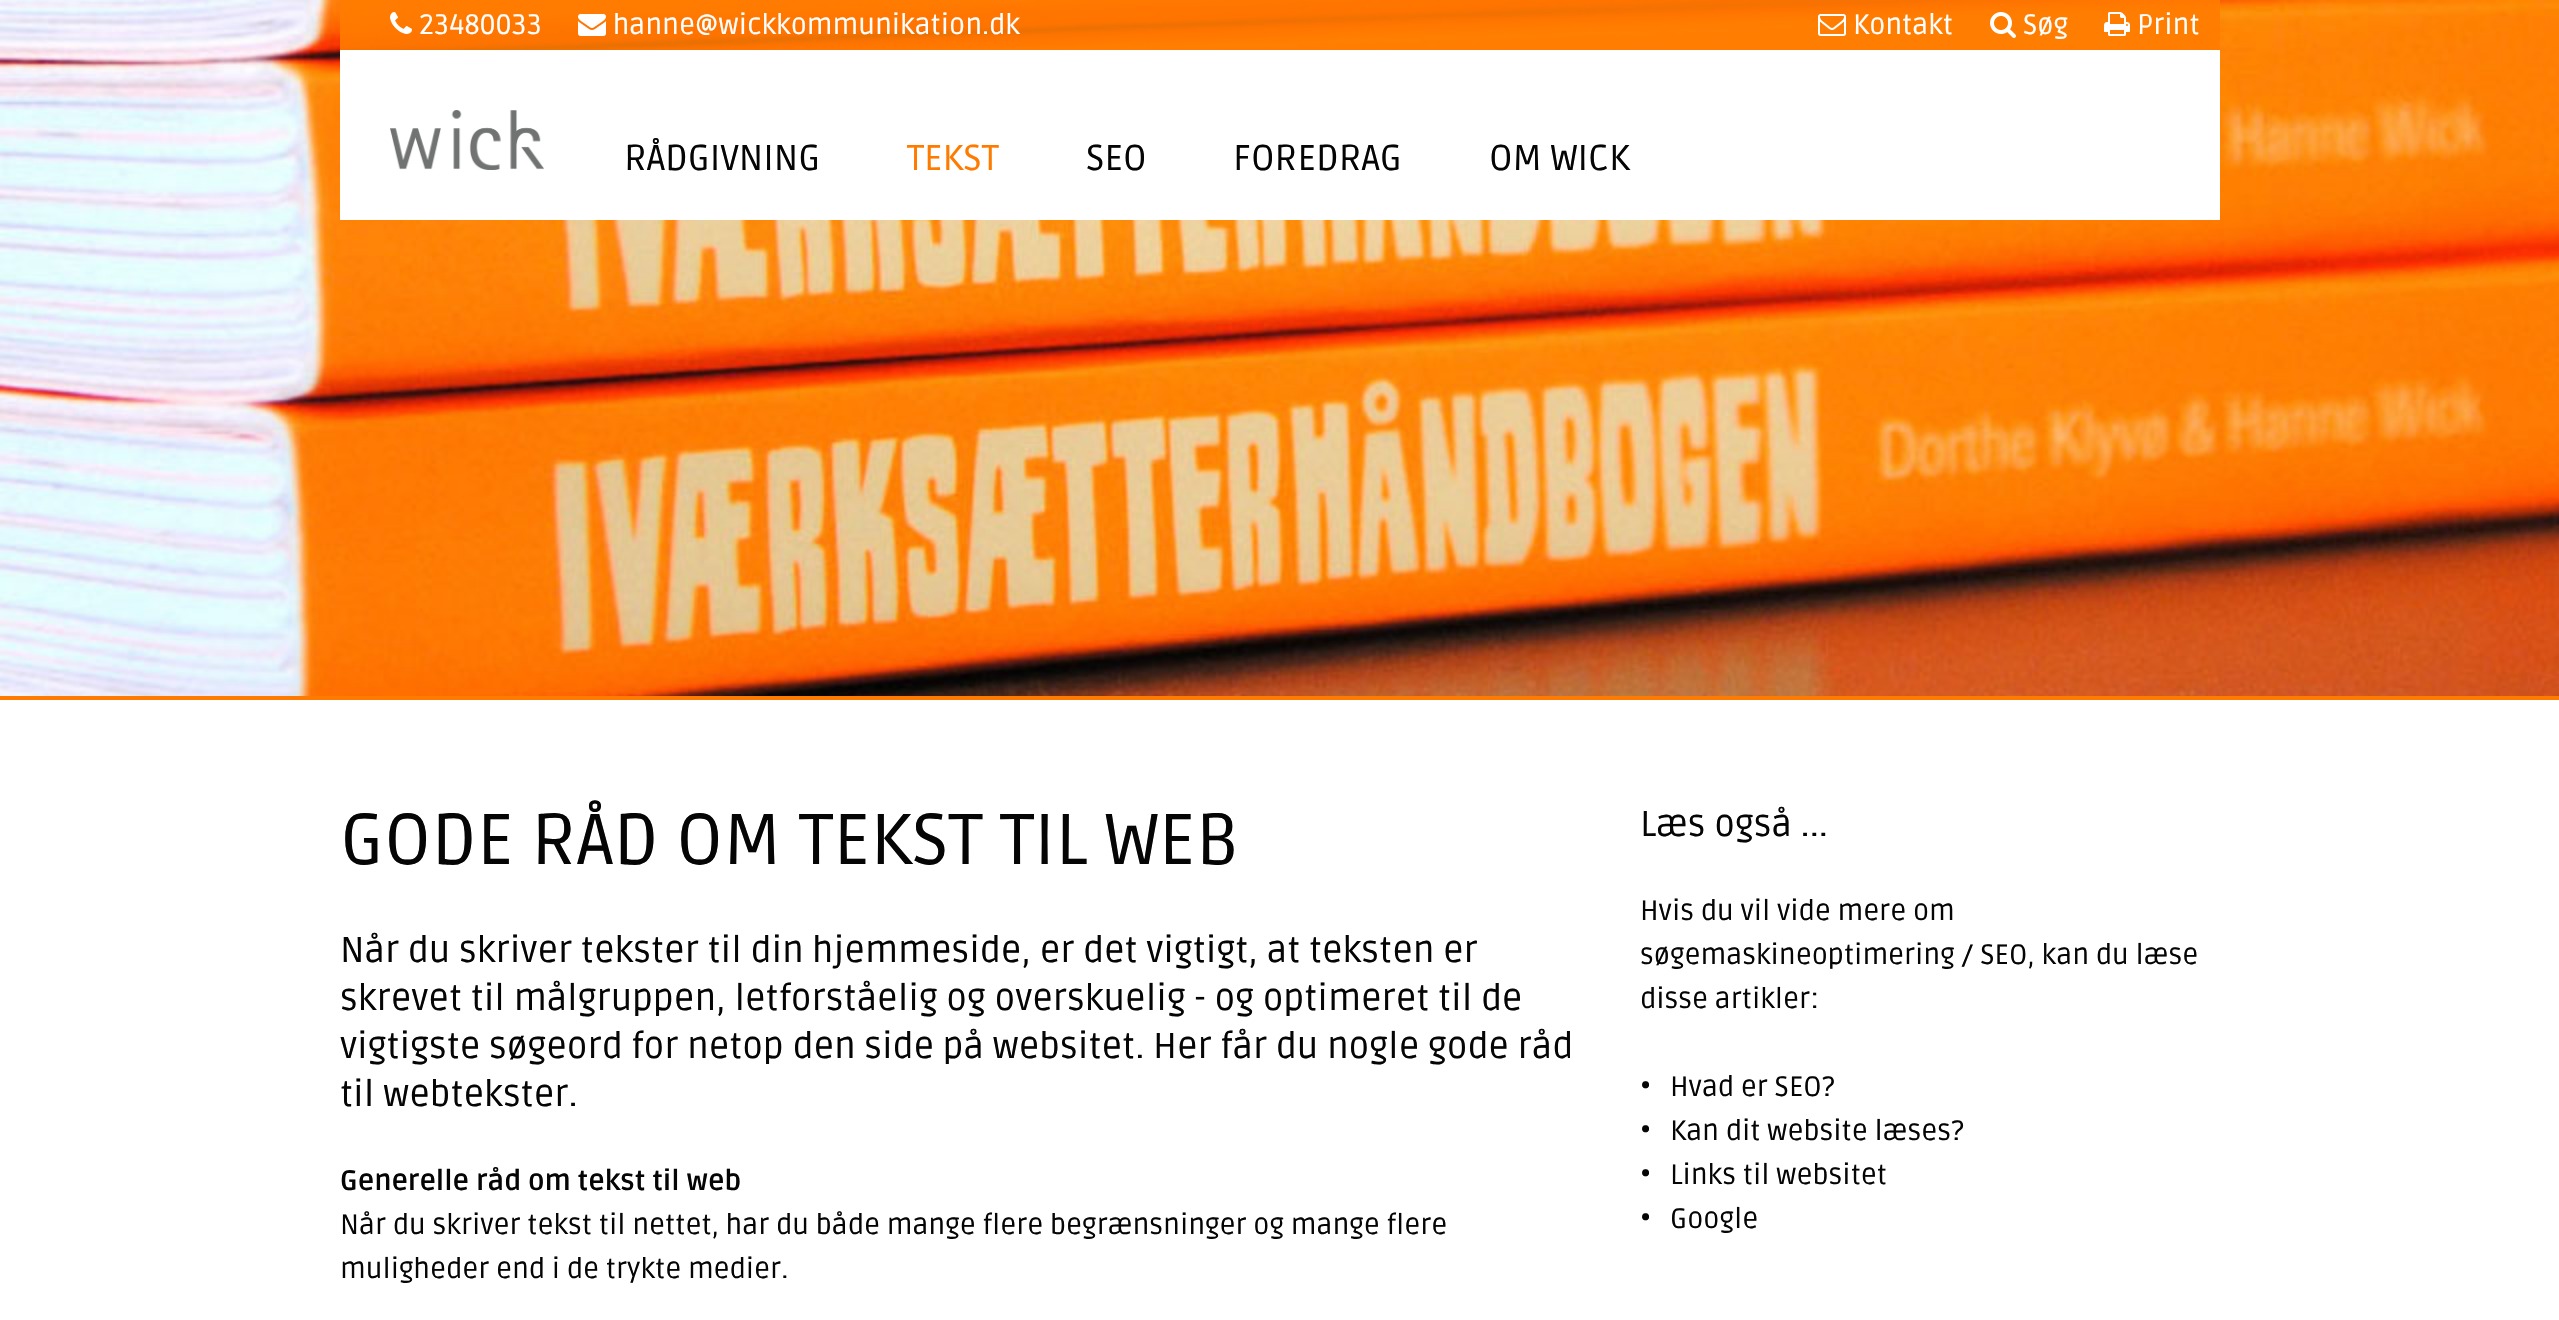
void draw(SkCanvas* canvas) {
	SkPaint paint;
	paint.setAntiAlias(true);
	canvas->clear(0xffffffff);
	canvas->drawImageRect(SkImages::DeferredFromEncodedData(SkData::MakeFromFileName("img1.png")), SkRect::MakeXYWH(0, 0, 2559, 696), SkSamplingOptions());
	paint.setColor(0xffff7b00);
	canvas->drawRect(SkRect::MakeXYWH(0, 696, 2559, 4), paint);
	paint.setColor(0xe6ff7b00);
	canvas->drawRect(SkRect::MakeXYWH(340, 0, 1880, 50), paint);
	canvas->drawImageRect(SkImages::DeferredFromEncodedData(SkData::MakeFromFileName("img2.png")), SkRect::MakeXYWH(390, 12, 22, 22), SkSamplingOptions());
	SkFont f1(fontMgr->matchFamilyStyle("Ruda", SkFontStyle::Normal()), 28);
	f1.setSubpixel(true);
	paint.setColor(0xffffffff);
	canvas->drawString("23480033", 419, 34, f1, paint);
	canvas->drawImageRect(SkImages::DeferredFromEncodedData(SkData::MakeFromFileName("img3.png")), SkRect::MakeXYWH(578, 14, 28, 22), SkSamplingOptions());
	canvas->drawString("hanne@wickkommunikation.dk", 613, 34, f1, paint);
	canvas->drawImageRect(SkImages::DeferredFromEncodedData(SkData::MakeFromFileName("img4.png")), SkRect::MakeXYWH(1818, 14, 28, 22), SkSamplingOptions());
	canvas->drawString("Kontakt", 1853, 34, f1, paint);
	canvas->drawImageRect(SkImages::DeferredFromEncodedData(SkData::MakeFromFileName("img5.png")), SkRect::MakeXYWH(1990, 12, 26, 26), SkSamplingOptions());
	canvas->drawString("Søg", 2023, 34, f1, paint);
	canvas->drawImageRect(SkImages::DeferredFromEncodedData(SkData::MakeFromFileName("img6.png")), SkRect::MakeXYWH(2104, 12, 26, 24), SkSamplingOptions());
	canvas->drawString("Print", 2137, 34, f1, paint);
	canvas->drawRect(SkRect::MakeXYWH(340, 50, 1880, 170), paint);
	canvas->drawImageRect(SkImages::DeferredFromEncodedData(SkData::MakeFromFileName("img7.png")), SkRect::MakeXYWH(390, 110, 154, 60), SkSamplingOptions());
	SkFont f2(fontMgr->matchFamilyStyle("Ruda", SkFontStyle::Normal()), 36);
	f2.setSubpixel(true);
	paint.setColor(0xff050505);
	canvas->drawString("RÅDGIVNING", 624, 170, f2, paint);
	paint.setColor(0xffff7b00);
	canvas->drawString("TEKST", 907, 170, f2, paint);
	paint.setColor(0xff050505);
	canvas->drawString("SEO", 1086, 170, f2, paint);
	canvas->drawString("FOREDRAG", 1233, 170, f2, paint);
	canvas->drawString("OM WICK", 1489, 170, f2, paint);
	SkFont f3(fontMgr->matchFamilyStyle("Ruda", SkFontStyle::Normal()), 72);
	f3.setSubpixel(true);
	canvas->drawString("GODE RÅD OM TEKST TIL WEB", 340, 864, f3, paint);
	canvas->drawString("Når du skriver tekster til din hjemmeside, er det vigtigt, at teksten er", 340, 962, f2, paint);
	canvas->drawString("skrevet til målgruppen, letforståelig og overskuelig - og optimeret til de", 340, 1010, f2, paint);
	canvas->drawString("vigtigste søgeord for netop den side på websitet. Her får du nogle gode råd", 340, 1058, f2, paint);
	canvas->drawString("til webtekster.", 340, 1106, f2, paint);
	SkFont f4(fontMgr->matchFamilyStyle("Ruda", SkFontStyle::Bold()), 28);
	f4.setSubpixel(true);
	canvas->drawString("Generelle råd om tekst til web", 340, 1190, f4, paint);
	canvas->drawString("Når du skriver tekst til nettet, har du både mange flere begrænsninger og mange flere", 340, 1234, f1, paint);
	canvas->drawString("muligheder end i de trykte medier.", 340, 1278, f1, paint);
	canvas->drawString("Læs også ...", 1640, 836, f2, paint);
	canvas->drawString("Hvis du vil vide mere om", 1640, 920, f1, paint);
	canvas->drawString("søgemaskineoptimering / SEO, kan du læse", 1640, 964, f1, paint);
	canvas->drawString("disse artikler:", 1640, 1008, f1, paint);
	SkFont f5(fontMgr->matchFamilyStyle("Ruda", SkFontStyle::Normal()), 30);
	f5.setSubpixel(true);
	canvas->drawString("•", 1640, 1098, f5, paint);
	canvas->drawString("Hvad er SEO?", 1670, 1096, f1, paint);
	canvas->drawString("•", 1640, 1142, f5, paint);
	canvas->drawString("Kan dit website læses?", 1670, 1140, f1, paint);
	canvas->drawString("•", 1640, 1186, f5, paint);
	canvas->drawString("Links til websitet", 1670, 1184, f1, paint);
	canvas->drawString("•", 1640, 1230, f5, paint);
	canvas->drawString("Google", 1670, 1228, f1, paint);
}
